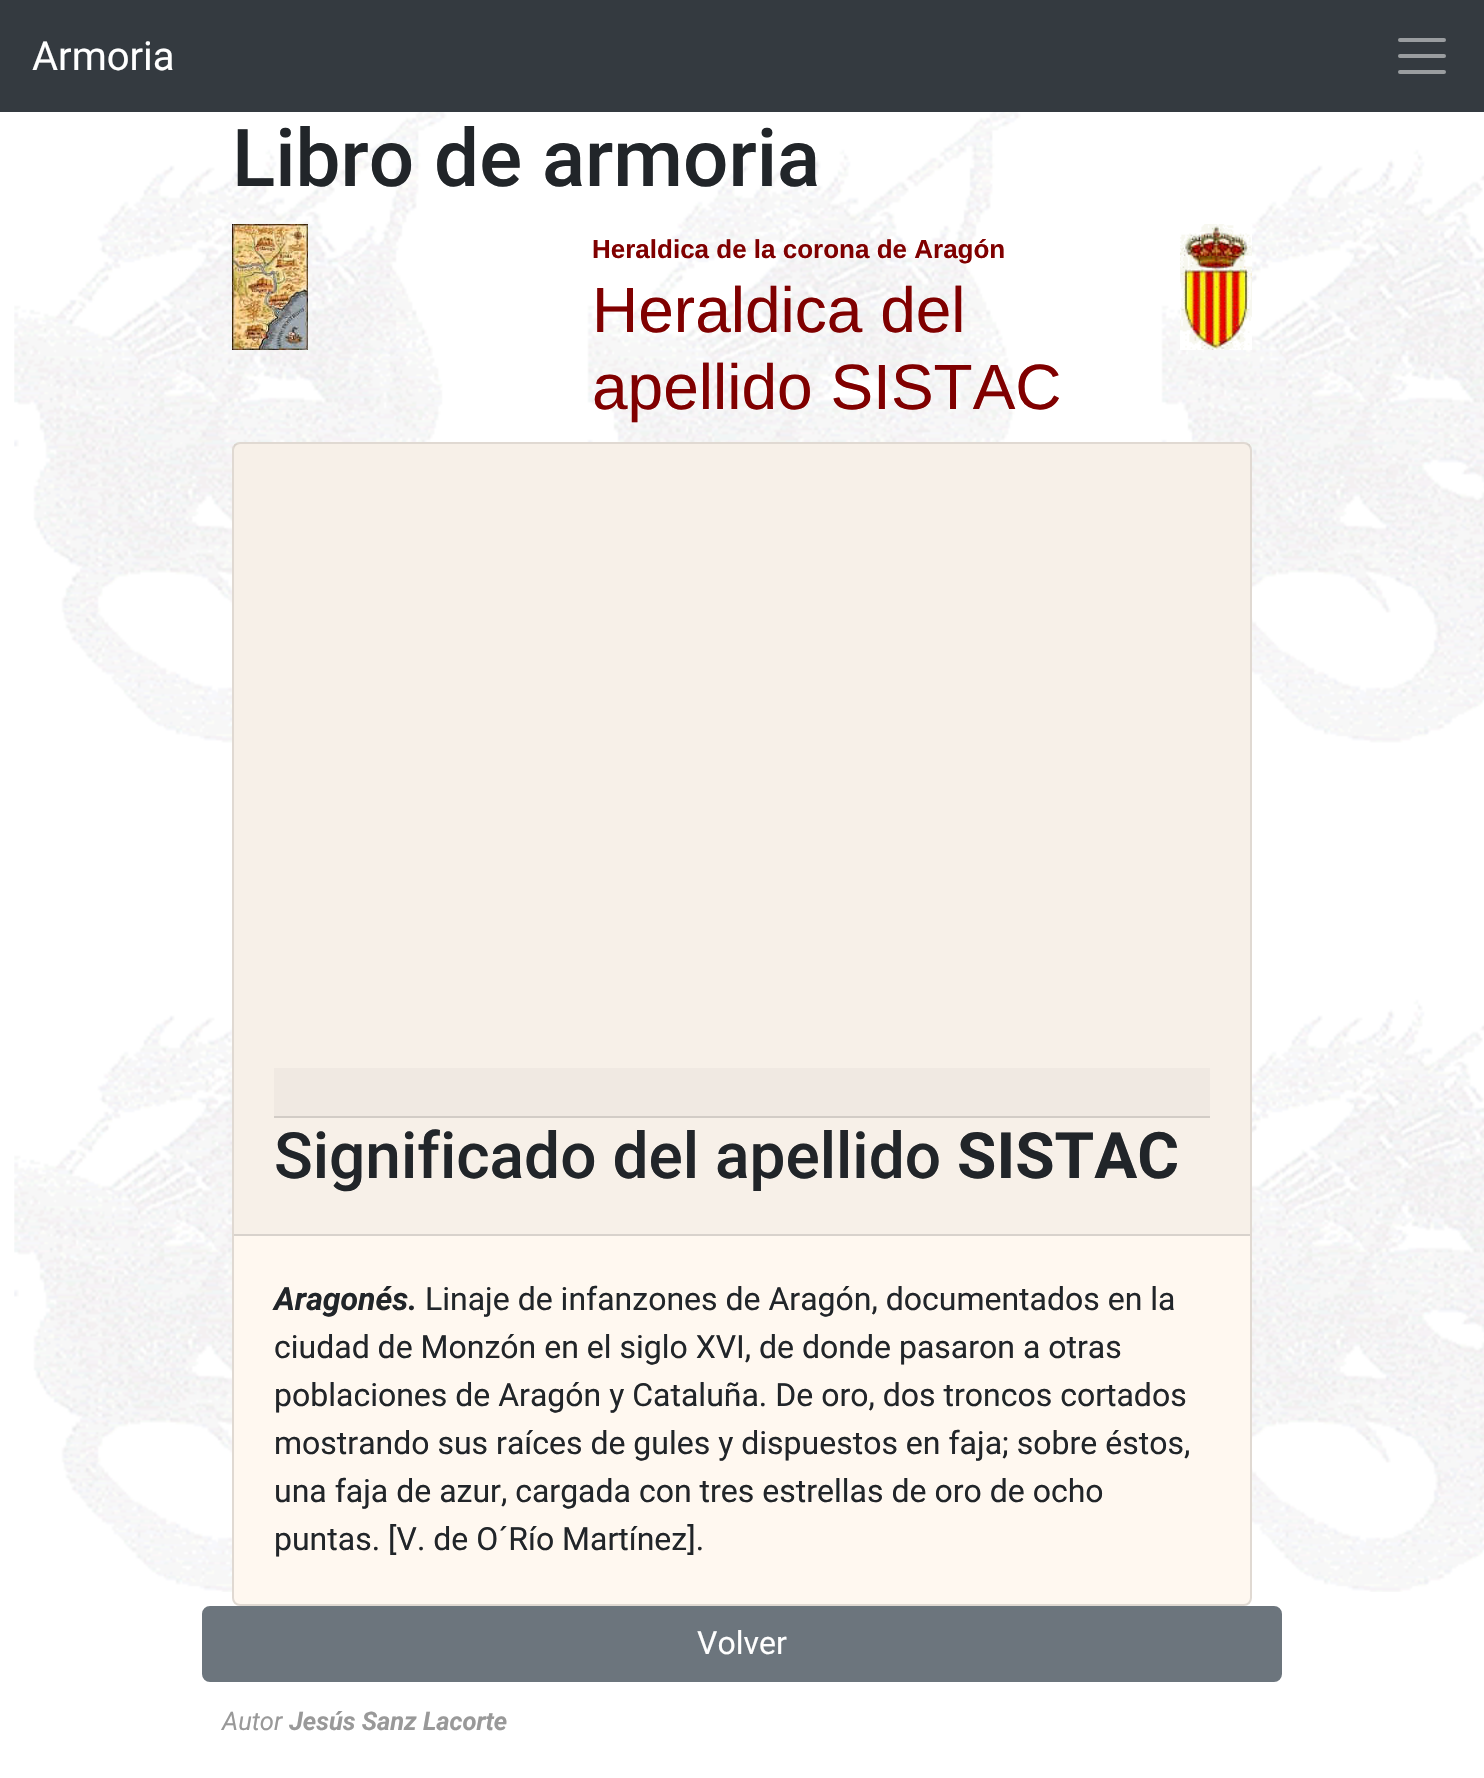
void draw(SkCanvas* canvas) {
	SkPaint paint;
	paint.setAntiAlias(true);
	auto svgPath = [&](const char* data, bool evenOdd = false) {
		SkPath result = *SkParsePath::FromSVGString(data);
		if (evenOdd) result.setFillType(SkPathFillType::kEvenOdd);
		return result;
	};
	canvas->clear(0xffffffff);
	canvas->drawImageRect(SkImages::DeferredFromEncodedData(SkData::MakeFromFileName("img1.png")), SkRect::MakeXYWH(14, 112, 1470, 1480), SkSamplingOptions());
	paint.setColor(0xff343a40);
	canvas->drawRect(SkRect::MakeXYWH(0, 0, 1484, 112), paint);
	SkFont f1(fontMgr->matchFamilyStyle("Roboto", SkFontStyle::Normal()), 40);
	f1.setSubpixel(true);
	paint.setColor(0xffffffff);
	canvas->drawString("Armoria", 32, 70, f1, paint);
	paint.setStroke(true);
	paint.setStrokeWidth(4);
	paint.setStrokeCap(SkPaint::kRound_Cap);
	paint.setColor(0xff9a9da0);
	canvas->drawPath(svgPath("M1400 40H1444M1400 56H1444M1400 72H1444"), paint);
	SkFont f2(fontMgr->matchFamilyStyle("Roboto", SkFontStyle(500, SkFontStyle::kNormal_Width, SkFontStyle::kUpright_Slant)), 80);
	f2.setSubpixel(true);
	paint.setStroke(false);
	paint.setColor(0xff212529);
	canvas->drawString("Libro de armoria", 232, 186, f2, paint);
	canvas->drawImageRect(SkImages::DeferredFromEncodedData(SkData::MakeFromFileName("img2.png")), SkRect::MakeXYWH(232, 224, 76, 126), SkSamplingOptions());
	SkFont f3(fontMgr->matchFamilyStyle("Liberation Sans", SkFontStyle::Bold()), 26);
	f3.setSubpixel(true);
	paint.setColor(0xff800000);
	canvas->drawString("Heraldica de la corona de Aragón", 592, 258, f3, paint);
	canvas->drawImageRect(SkImages::DeferredFromEncodedData(SkData::MakeFromFileName("img3.png")), SkRect::MakeXYWH(1180, 224, 72, 126), SkSamplingOptions());
	SkFont f4(fontMgr->matchFamilyStyle("Liberation Sans", SkFontStyle::Normal()), 64);
	f4.setSubpixel(true);
	canvas->drawString("Heraldica del", 592, 332, f4, paint);
	canvas->drawString("apellido SISTAC", 592, 409, f4, paint);
	paint.setColor(0xfffff8f0);
	canvas->drawRoundRect(SkRect::MakeXYWH(232, 442, 1020, 1164), 8, 8, paint);
	paint.setStroke(true);
	paint.setStrokeWidth(2);
	paint.setStrokeCap(SkPaint::kButt_Cap);
	paint.setColor(0x1f000000);
	canvas->drawRoundRect(SkRect::MakeXYWH(233, 443, 1018, 1162), 7, 7, paint);
	paint.setStroke(false);
	paint.setColor(0x08000000);
	canvas->drawRect(SkRect::MakeXYWH(234, 444, 1016, 790), paint);
	paint.setColor(0xffd8d2cc);
	canvas->drawRect(SkRect::MakeXYWH(234, 1234, 1016, 2), paint);
	paint.setColor(0xfff0e9e2);
	canvas->drawRect(SkRect::MakeXYWH(274, 1068, 936, 48), paint);
	paint.setColor(0xffd2ccc6);
	canvas->drawRect(SkRect::MakeXYWH(274, 1116, 936, 2), paint);
	SkFont f5(fontMgr->matchFamilyStyle("Roboto", SkFontStyle(500, SkFontStyle::kNormal_Width, SkFontStyle::kUpright_Slant)), 64);
	f5.setSubpixel(true);
	paint.setColor(0xff212529);
	canvas->drawString("Significado del apellido", 274, 1178, f5, paint);
	SkFont f6(fontMgr->matchFamilyStyle("Roboto", SkFontStyle::Bold()), 64);
	f6.setSubpixel(true);
	canvas->drawString("SISTAC", 957, 1178, f6, paint);
	SkFont f7(fontMgr->matchFamilyStyle("Roboto", SkFontStyle::BoldItalic()), 32);
	f7.setSubpixel(true);
	canvas->drawString("Aragonés.", 274, 1310, f7, paint);
	SkFont f8(fontMgr->matchFamilyStyle("Roboto", SkFontStyle::Normal()), 32);
	f8.setSubpixel(true);
	canvas->drawString("Linaje de infanzones de Aragón, documentados en la", 425, 1310, f8, paint);
	canvas->drawString("ciudad de Monzón en el siglo XVI, de donde pasaron a otras", 274, 1358, f8, paint);
	canvas->drawString("poblaciones de Aragón y Cataluña. De oro, dos troncos cortados", 274, 1406, f8, paint);
	canvas->drawString("mostrando sus raíces de gules y dispuestos en faja; sobre éstos,", 274, 1454, f8, paint);
	canvas->drawString("una faja de azur, cargada con tres estrellas de oro de ocho", 274, 1502, f8, paint);
	canvas->drawString("puntas. [V. de O´Río Martínez].", 274, 1550, f8, paint);
	paint.setColor(0xff6c757d);
	canvas->drawRoundRect(SkRect::MakeXYWH(203, 1607, 1078, 74), 7, 7, paint);
	paint.setStroke(true);
	canvas->drawRoundRect(SkRect::MakeXYWH(203, 1607, 1078, 74), 7, 7, paint);
	paint.setStroke(false);
	paint.setColor(0xffffffff);
	canvas->drawString("Volver", 697, 1654, f8, paint);
	SkFont f9(fontMgr->matchFamilyStyle("Roboto", SkFontStyle::Italic()), 25.5);
	f9.setSubpixel(true);
	paint.setColor(0xff999999);
	canvas->drawString("Autor", 222, 1730, f9, paint);
	SkFont f10(fontMgr->matchFamilyStyle("Roboto", SkFontStyle::BoldItalic()), 25.5);
	f10.setSubpixel(true);
	canvas->drawString("Jesús Sanz Lacorte", 289, 1730, f10, paint);
}
